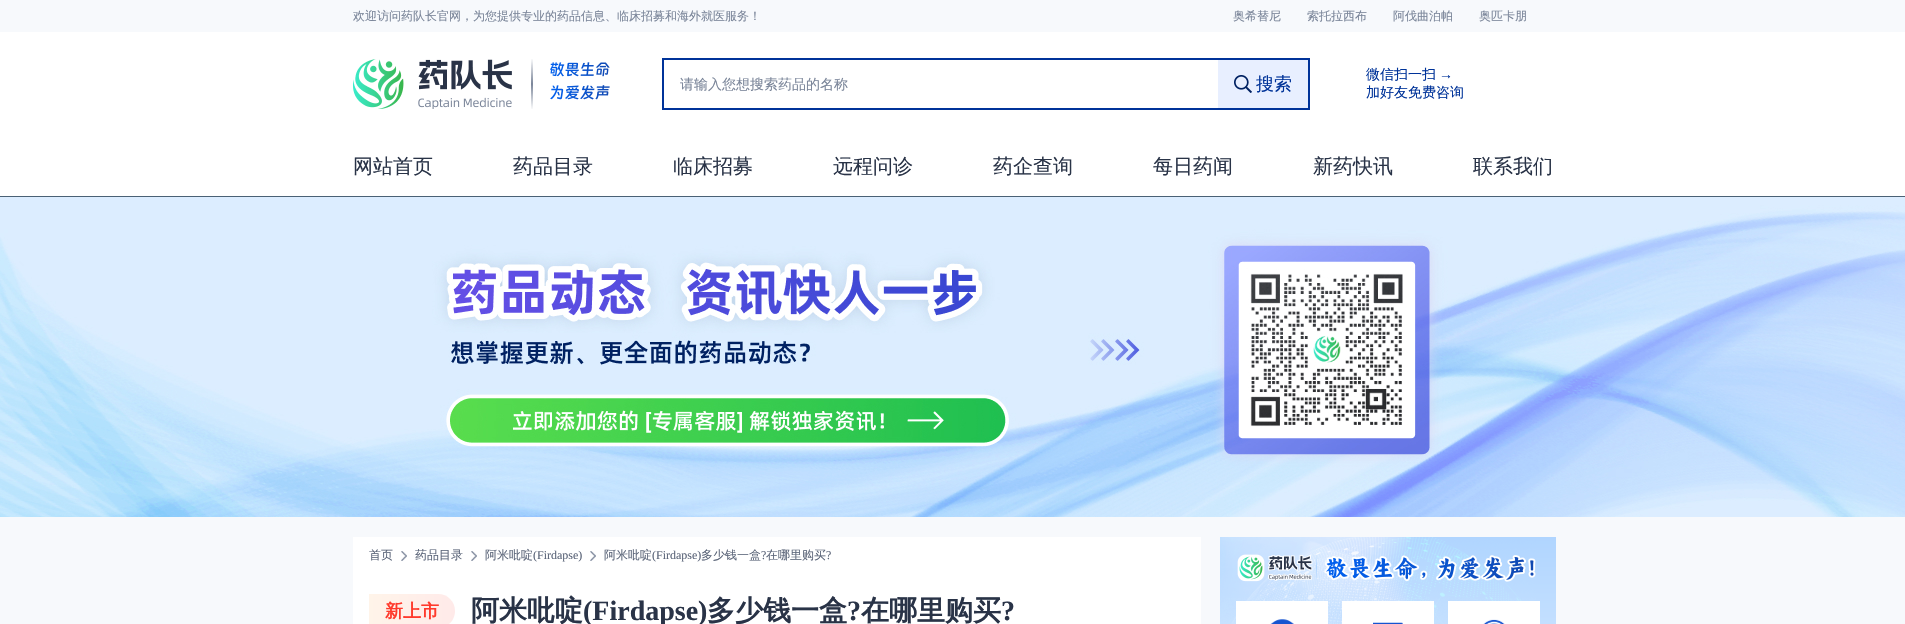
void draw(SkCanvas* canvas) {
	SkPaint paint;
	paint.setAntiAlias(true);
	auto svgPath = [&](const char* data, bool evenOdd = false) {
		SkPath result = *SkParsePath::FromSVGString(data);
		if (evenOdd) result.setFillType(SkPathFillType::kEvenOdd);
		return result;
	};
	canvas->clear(0xfff7f9fc);
	SkFont f1(fontMgr->matchFamilyStyle("WenQuanYi Zen Hei", SkFontStyle(500, SkFontStyle::kNormal_Width, SkFontStyle::kUpright_Slant)), 12);
	f1.setSubpixel(true);
	paint.setColor(0xff7a8599);
	canvas->drawString("欢迎访问药队长官网，为您提供专业的药品信息、临床招募和海外就医服务！", 353, 20, f1, paint);
	canvas->drawString("奥希替尼", 1233, 20, f1, paint);
	canvas->drawString("索托拉西布", 1307, 20, f1, paint);
	canvas->drawString("阿伐曲泊帕", 1393, 20, f1, paint);
	canvas->drawString("奥匹卡朋", 1479, 20, f1, paint);
	paint.setColor(0xffffffff);
	canvas->drawRect(SkRect::MakeXYWH(0, 32, 1905, 164), paint);
	canvas->drawImageRect(SkImages::DeferredFromEncodedData(SkData::MakeFromFileName("img1.png")), SkRect::MakeXYWH(353, 59, 159, 50), SkSamplingOptions());
	canvas->drawImageRect(SkImages::DeferredFromEncodedData(SkData::MakeFromFileName("img2.png")), SkRect::MakeXYWH(531, 59, 2, 50), SkSamplingOptions());
	canvas->drawImageRect(SkImages::DeferredFromEncodedData(SkData::MakeFromFileName("img3.png")), SkRect::MakeXYWH(550, 62, 60, 38), SkSamplingOptions());
	paint.setStroke(true);
	paint.setStrokeWidth(2);
	paint.setColor(0xff003399);
	canvas->drawRect(SkRect::MakeXYWH(663, 59, 646, 50), paint);
	SkFont f2(fontMgr->matchFamilyStyle("WenQuanYi Zen Hei", SkFontStyle(500, SkFontStyle::kNormal_Width, SkFontStyle::kUpright_Slant)), 14);
	f2.setSubpixel(true);
	paint.setStroke(false);
	paint.setColor(0xff7a8599);
	canvas->drawString("请输入您想搜索药品的名称", 680, 89, f2, paint);
	paint.setColor(0xffe8efff);
	canvas->drawRect(SkRect::MakeXYWH(1218, 60, 90, 48), paint);
	canvas->drawImageRect(SkImages::DeferredFromEncodedData(SkData::MakeFromFileName("img4.png")), SkRect::MakeXYWH(1234, 75, 18, 18), SkSamplingOptions());
	SkFont f3(fontMgr->matchFamilyStyle("WenQuanYi Zen Hei", SkFontStyle(500, SkFontStyle::kNormal_Width, SkFontStyle::kUpright_Slant)), 18);
	f3.setSubpixel(true);
	paint.setColor(0xff003399);
	canvas->drawString("搜索", 1256, 90, f3, paint);
	canvas->drawString("微信扫一扫", 1366, 79, f2, paint);
	SkFont f4(fontMgr->matchFamilyStyle("Liberation Serif", SkFontStyle::Normal()), 14);
	f4.setSubpixel(true);
	canvas->drawString("→", 1439, 79, f4, paint);
	canvas->drawString("加好友免费咨询", 1366, 97, f2, paint);
	paint.setColor(0xff4a6175);
	canvas->drawRect(SkRect::MakeXYWH(0, 196, 1905, 1), paint);
	SkFont f5(fontMgr->matchFamilyStyle("WenQuanYi Zen Hei", SkFontStyle(500, SkFontStyle::kNormal_Width, SkFontStyle::kUpright_Slant)), 20);
	f5.setSubpixel(true);
	paint.setColor(0xff293347);
	canvas->drawString("网站首页", 353, 173, f5, paint);
	canvas->drawString("药品目录", 513, 173, f5, paint);
	canvas->drawString("临床招募", 673, 173, f5, paint);
	canvas->drawString("远程问诊", 833, 173, f5, paint);
	canvas->drawString("药企查询", 993, 173, f5, paint);
	canvas->drawString("每日药闻", 1153, 173, f5, paint);
	canvas->drawString("新药快讯", 1313, 173, f5, paint);
	canvas->drawString("联系我们", 1473, 173, f5, paint);
	canvas->drawImageRect(SkImages::DeferredFromEncodedData(SkData::MakeFromFileName("img5.png")), SkRect::MakeXYWH(0, 197, 1905, 320), SkSamplingOptions());
	paint.setColor(0xffffffff);
	canvas->drawRect(SkRect::MakeXYWH(353, 537, 848, 87), paint);
	paint.setColor(0xff5a6478);
	canvas->drawString("首页", 369, 559, f1, paint);
	canvas->drawImageRect(SkImages::DeferredFromEncodedData(SkData::MakeFromFileName("img6.png")), SkRect::MakeXYWH(401, 551, 6, 10), SkSamplingOptions());
	canvas->drawString("药品目录", 415, 559, f1, paint);
	canvas->drawImageRect(SkImages::DeferredFromEncodedData(SkData::MakeFromFileName("img6.png")), SkRect::MakeXYWH(471, 551, 6, 10), SkSamplingOptions());
	canvas->drawString("阿米吡啶", 485, 559, f1, paint);
	SkFont f6(fontMgr->matchFamilyStyle("Liberation Serif", SkFontStyle::Normal()), 12);
	f6.setSubpixel(true);
	canvas->drawString("(Firdapse)", 533, 559, f6, paint);
	canvas->drawImageRect(SkImages::DeferredFromEncodedData(SkData::MakeFromFileName("img7.png")), SkRect::MakeXYWH(590, 551, 6, 10), SkSamplingOptions());
	canvas->drawString("阿米吡啶", 604, 559, f1, paint);
	canvas->drawString("(Firdapse)", 652, 559, f6, paint);
	canvas->drawString("多少钱一盒", 701, 559, f1, paint);
	canvas->drawString("?", 761, 559, f6, paint);
	canvas->drawString("在哪里购买", 766, 559, f1, paint);
	canvas->drawString("?", 826, 559, f6, paint);
	{
		const SkColor colors[] = {0xfffff4e9, 0xffffeae9};
		const float stops[] = {0, 1};
		const SkPoint ends[] = {{369, 611}, {455, 611}};
		paint.setShader(SkGradientShader::MakeLinear(ends, colors, stops, 2, SkTileMode::kClamp));
		paint.setAlpha(255);
	}
	canvas->drawPath(svgPath("M369 594H438C447.5 594 455 601.5 455 611C455 620.5 447.5 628 438 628H369Z"), paint);
	SkFont f7(fontMgr->matchFamilyStyle("WenQuanYi Zen Hei", SkFontStyle::Bold()), 18);
	f7.setSubpixel(true);
	paint.setShader(nullptr);
	paint.setColor(0xffff3a2c);
	canvas->drawString("新上市", 385, 617, f7, paint);
	SkFont f8(fontMgr->matchFamilyStyle("WenQuanYi Zen Hei", SkFontStyle::Bold()), 28);
	f8.setSubpixel(true);
	paint.setColor(0xff293347);
	canvas->drawString("阿米吡啶", 471, 620, f8, paint);
	SkFont f9(fontMgr->matchFamilyStyle("Liberation Serif", SkFontStyle::Bold()), 28);
	f9.setSubpixel(true);
	canvas->drawString("(Firdapse)", 583, 620, f9, paint);
	canvas->drawString("多少钱一盒", 707, 620, f8, paint);
	canvas->drawString("?", 847, 620, f9, paint);
	canvas->drawString("在哪里购买", 861, 620, f8, paint);
	canvas->drawString("?", 1001, 620, f9, paint);
	{
		const SkColor colors[] = {0xffb0d5ff, 0xffffffff};
		const float stops[] = {0, 1};
		const SkPoint ends[] = {{1388, 537}, {1388, 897}};
		paint.setShader(SkGradientShader::MakeLinear(ends, colors, stops, 2, SkTileMode::kClamp));
		paint.setAlpha(255);
	}
	canvas->drawRect(SkRect::MakeXYWH(1536, 537, 20, 87), paint);
	canvas->drawImageRect(SkImages::DeferredFromEncodedData(SkData::MakeFromFileName("img8.png")), SkRect::MakeXYWH(1220, 537, 316, 87), SkSamplingOptions());
	paint.setShader(nullptr);
	paint.setColor(0xffffffff);
	canvas->drawRect(SkRect::MakeXYWH(1236, 601, 92, 23), paint);
	canvas->drawImageRect(SkImages::DeferredFromEncodedData(SkData::MakeFromFileName("img9.png")), SkRect::MakeXYWH(1270, 619, 24, 5), SkSamplingOptions());
	canvas->drawRect(SkRect::MakeXYWH(1342, 601, 92, 23), paint);
	canvas->drawImageRect(SkImages::DeferredFromEncodedData(SkData::MakeFromFileName("img10.png")), SkRect::MakeXYWH(1373, 622, 30, 2), SkSamplingOptions());
	canvas->drawRect(SkRect::MakeXYWH(1448, 601, 92, 23), paint);
	canvas->drawImageRect(SkImages::DeferredFromEncodedData(SkData::MakeFromFileName("img11.png")), SkRect::MakeXYWH(1483, 619, 22, 5), SkSamplingOptions());
}
